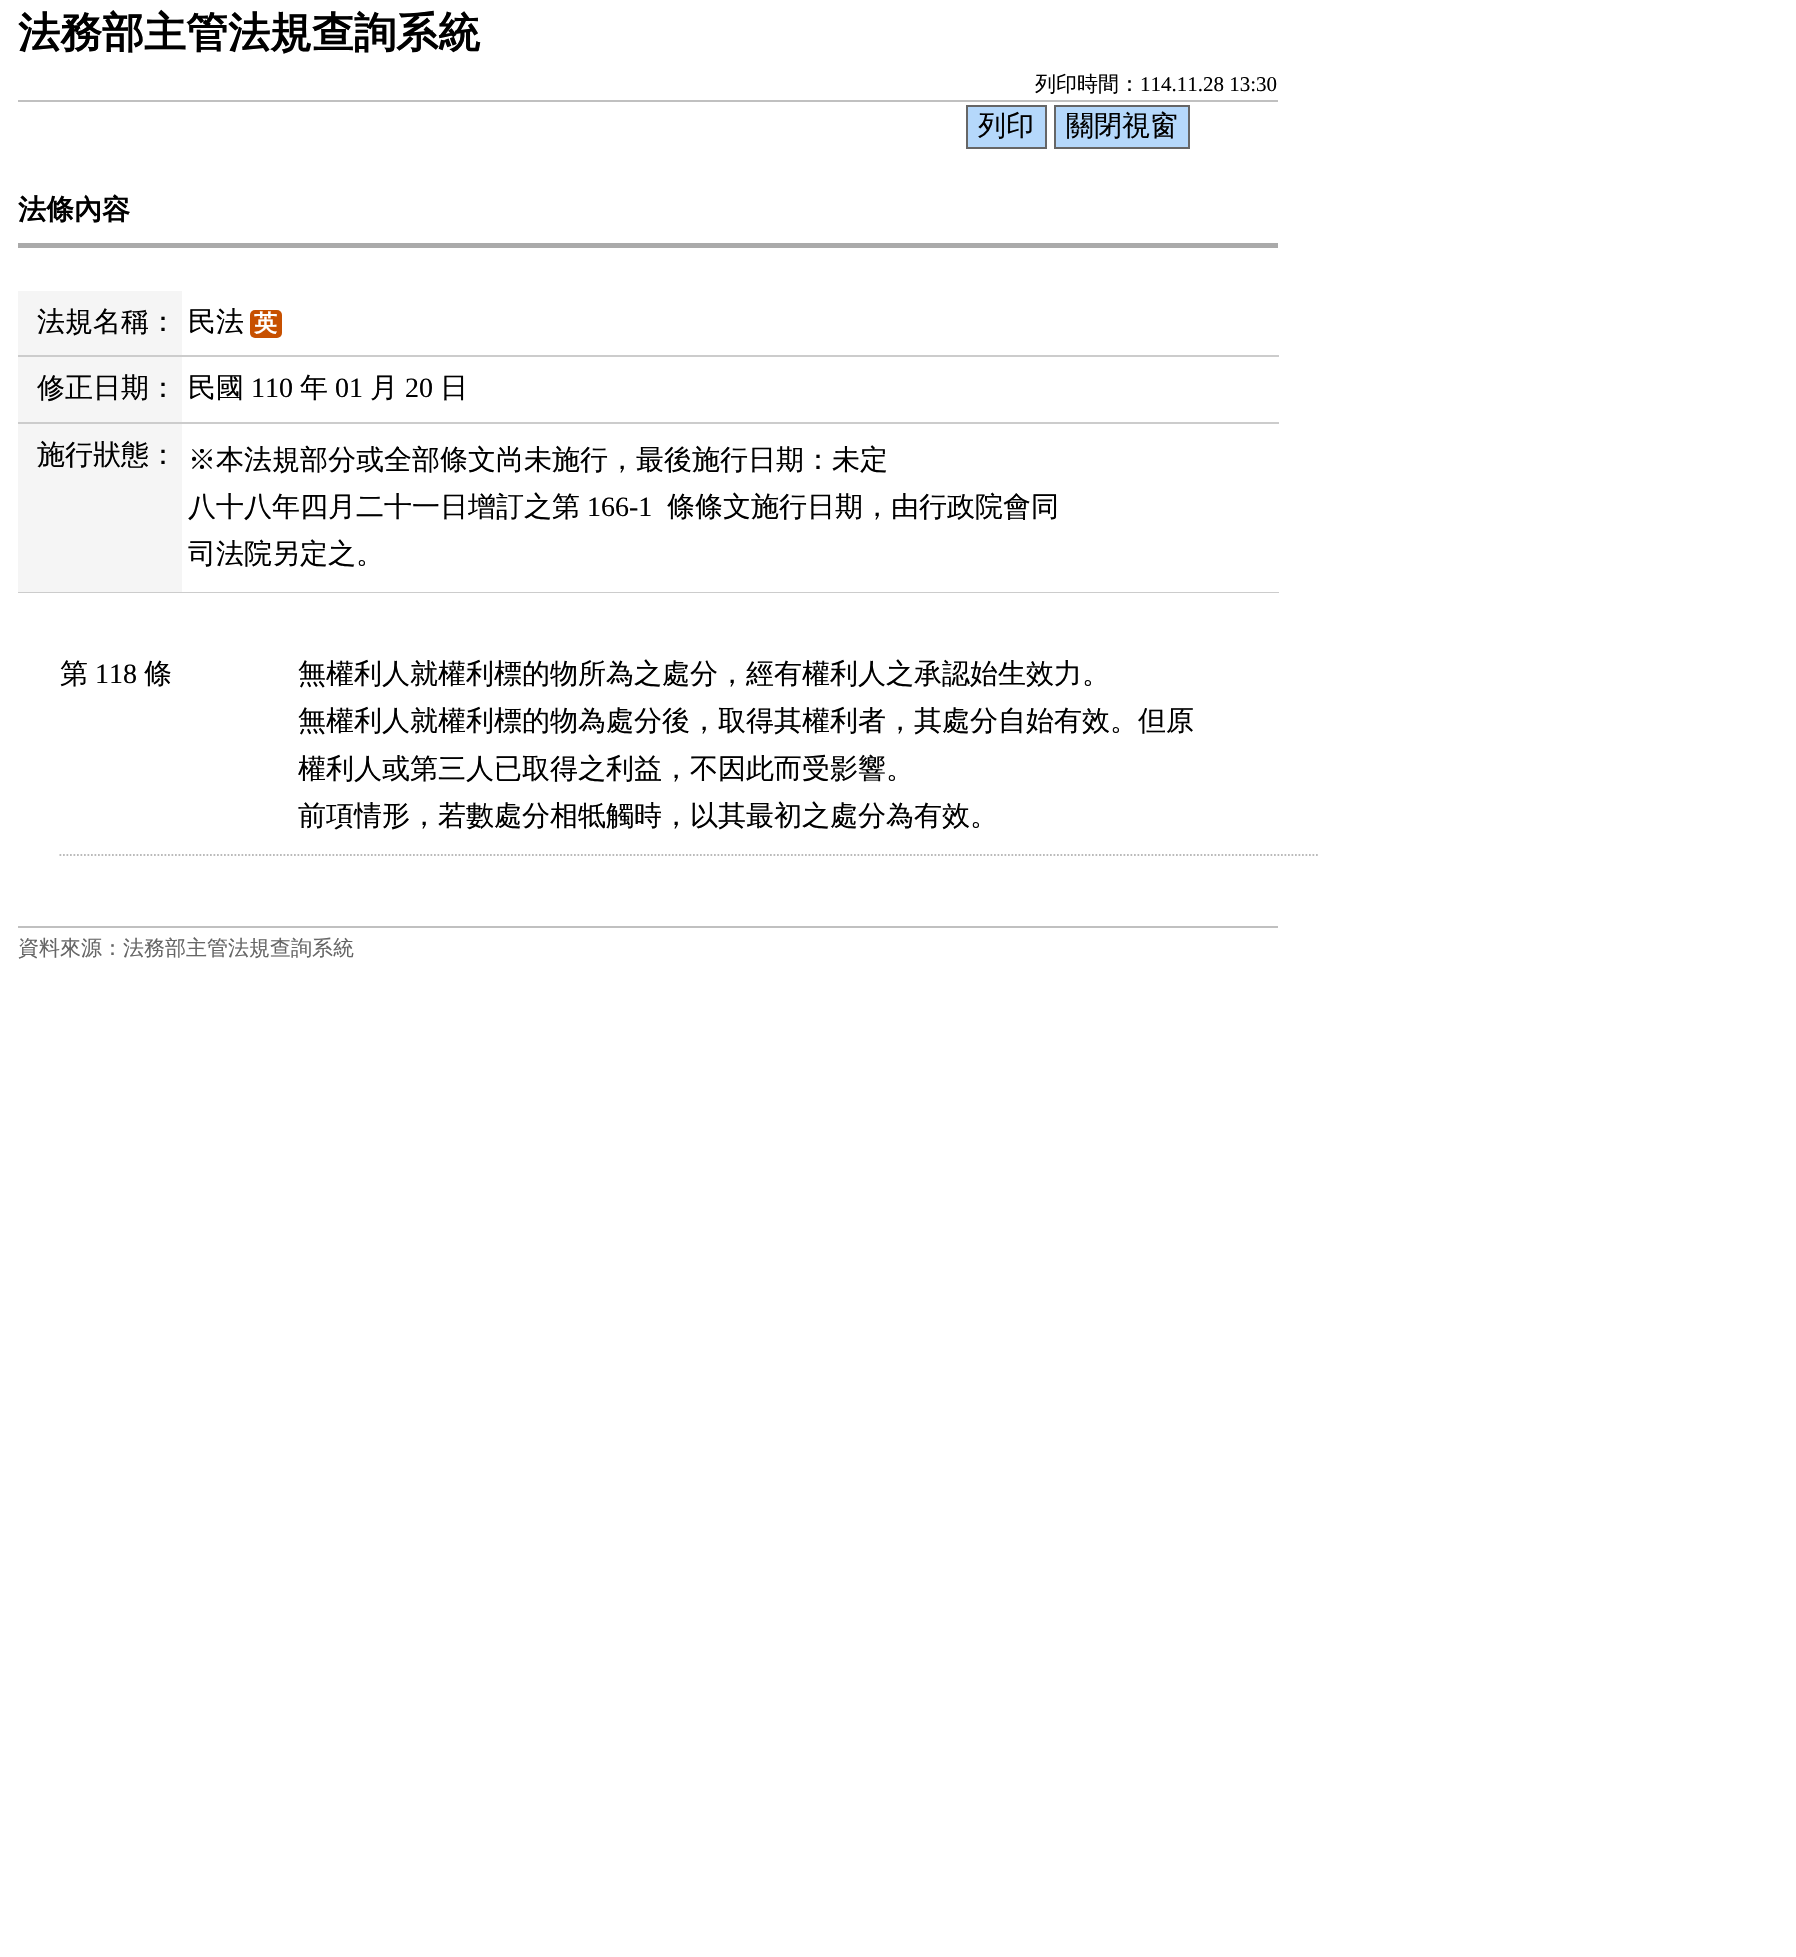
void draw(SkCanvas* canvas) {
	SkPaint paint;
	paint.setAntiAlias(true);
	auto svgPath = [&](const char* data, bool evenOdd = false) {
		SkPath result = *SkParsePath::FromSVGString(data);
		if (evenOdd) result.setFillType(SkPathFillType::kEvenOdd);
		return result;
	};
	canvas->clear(0xffffffff);
	paint.setColor(0xffc0c0c0);
	canvas->drawRect(SkRect::MakeXYWH(18, 100, 1260, 2), paint);
	SkFont f1(fontMgr->matchFamilyStyle("WenQuanYi Zen Hei", SkFontStyle::Bold()), 42);
	f1.setSubpixel(true);
	paint.setColor(0xff000000);
	canvas->drawString("法務部主管法規查詢系統", 18, 47, f1, paint);
	SkFont f2(fontMgr->matchFamilyStyle("WenQuanYi Zen Hei", SkFontStyle(500, SkFontStyle::kNormal_Width, SkFontStyle::kUpright_Slant)), 21);
	f2.setSubpixel(true);
	canvas->drawString("列印時間：", 1035, 91, f2, paint);
	SkFont f3(fontMgr->matchFamilyStyle("Liberation Serif", SkFontStyle::Normal()), 21);
	f3.setSubpixel(true);
	canvas->drawString("114.11.28 13:30", 1140, 91, f3, paint);
	paint.setColor(0xffb5d8fb);
	canvas->drawRect(SkRect::MakeXYWH(967, 106, 79, 42), paint);
	paint.setStroke(true);
	paint.setStrokeWidth(2);
	paint.setColor(0xff666666);
	canvas->drawRect(SkRect::MakeXYWH(967, 106, 79, 42), paint);
	SkFont f4(fontMgr->matchFamilyStyle("WenQuanYi Zen Hei", SkFontStyle(500, SkFontStyle::kNormal_Width, SkFontStyle::kUpright_Slant)), 28);
	f4.setSubpixel(true);
	paint.setStroke(false);
	paint.setColor(0xff000000);
	canvas->drawString("列印", 978, 135, f4, paint);
	paint.setColor(0xffb5d8fb);
	canvas->drawRect(SkRect::MakeXYWH(1055, 106, 134, 42), paint);
	paint.setStroke(true);
	paint.setColor(0xff666666);
	canvas->drawRect(SkRect::MakeXYWH(1055, 106, 134, 42), paint);
	paint.setStroke(false);
	paint.setColor(0xff000000);
	canvas->drawString("關閉視窗", 1066, 135, f4, paint);
	paint.setColor(0xffaaaaaa);
	canvas->drawRect(SkRect::MakeXYWH(18, 243, 1260, 5), paint);
	SkFont f5(fontMgr->matchFamilyStyle("WenQuanYi Zen Hei", SkFontStyle::Bold()), 28);
	f5.setSubpixel(true);
	paint.setColor(0xff000000);
	canvas->drawString("法條內容", 18, 219, f5, paint);
	paint.setColor(0xfff5f5f5);
	canvas->drawRect(SkRect::MakeXYWH(18, 291, 164, 64), paint);
	paint.setColor(0xff000000);
	canvas->drawString("法規名稱：", 37, 331, f4, paint);
	paint.setColor(0xffcccccc);
	canvas->drawRect(SkRect::MakeXYWH(18, 355, 1261, 2), paint);
	paint.setColor(0xff000000);
	canvas->drawString("民法", 188, 331, f4, paint);
	paint.setColor(0xffc75000);
	canvas->drawRoundRect(SkRect::MakeXYWH(250, 310, 32, 28), 5, 5, paint);
	SkFont f6(fontMgr->matchFamilyStyle("WenQuanYi Zen Hei", SkFontStyle::Bold()), 23);
	f6.setSubpixel(true);
	paint.setColor(0xffffffff);
	canvas->drawString("英", 254, 331, f6, paint);
	paint.setColor(0xfff5f5f5);
	canvas->drawRect(SkRect::MakeXYWH(18, 357, 164, 65), paint);
	paint.setColor(0xff000000);
	canvas->drawString("修正日期：", 37, 397, f4, paint);
	paint.setColor(0xffcccccc);
	canvas->drawRect(SkRect::MakeXYWH(18, 422, 1261, 2), paint);
	paint.setColor(0xff000000);
	canvas->drawString("民國", 188, 397, f4, paint);
	SkFont f7(fontMgr->matchFamilyStyle("Liberation Serif", SkFontStyle::Normal()), 28);
	f7.setSubpixel(true);
	canvas->drawString("110", 251, 397, f7, paint);
	canvas->drawString("年", 300, 397, f4, paint);
	canvas->drawString("01", 335, 397, f7, paint);
	canvas->drawString("月", 370, 397, f4, paint);
	canvas->drawString("20", 405, 397, f7, paint);
	canvas->drawString("日", 440, 397, f4, paint);
	paint.setColor(0xfff5f5f5);
	canvas->drawRect(SkRect::MakeXYWH(18, 424, 164, 168), paint);
	paint.setColor(0xff000000);
	canvas->drawString("施行狀態：", 37, 464, f4, paint);
	paint.setColor(0xffcccccc);
	canvas->drawRect(SkRect::MakeXYWH(18, 592, 1261, 1), paint);
	paint.setColor(0xff000000);
	canvas->drawString("※本法規部分或全部條文尚未施行，最後施行日期：未定", 188, 469, f4, paint);
	canvas->drawString("八十八年四月二十一日增訂之第", 188, 516, f4, paint);
	canvas->drawString("166-1", 587, 516, f7, paint);
	canvas->drawString("條條文施行日期，由行政院會同", 667, 516, f4, paint);
	canvas->drawString("司法院另定之。", 188, 563, f4, paint);
	paint.setStroke(true);
	paint.setStrokeWidth(1.8);
	paint.setColor(0xffbbbbbb);
	paint.setPathEffect(SkDashPathEffect::Make({{1.75f, 1.75f}}, 0));
	canvas->drawPath(svgPath("M59.5 855H1319.5"), paint);
	paint.setPathEffect(nullptr);
	paint.setStroke(false);
	paint.setColor(0xff000000);
	canvas->drawString("第", 60, 683, f4, paint);
	canvas->drawString("118", 95, 683, f7, paint);
	canvas->drawString("條", 144, 683, f4, paint);
	canvas->drawString("無權利人就權利標的物所為之處分，經有權利人之承認始生效力。", 298, 683, f4, paint);
	canvas->drawString("無權利人就權利標的物為處分後，取得其權利者，其處分自始有效。但原", 298, 730, f4, paint);
	canvas->drawString("權利人或第三人已取得之利益，不因此而受影響。", 298, 778, f4, paint);
	canvas->drawString("前項情形，若數處分相牴觸時，以其最初之處分為有效。", 298, 825, f4, paint);
	paint.setColor(0xffc0c0c0);
	canvas->drawRect(SkRect::MakeXYWH(18, 926, 1260, 2), paint);
	paint.setColor(0xff666666);
	canvas->drawString("資料來源：法務部主管法規查詢系統", 18, 955, f2, paint);
}
